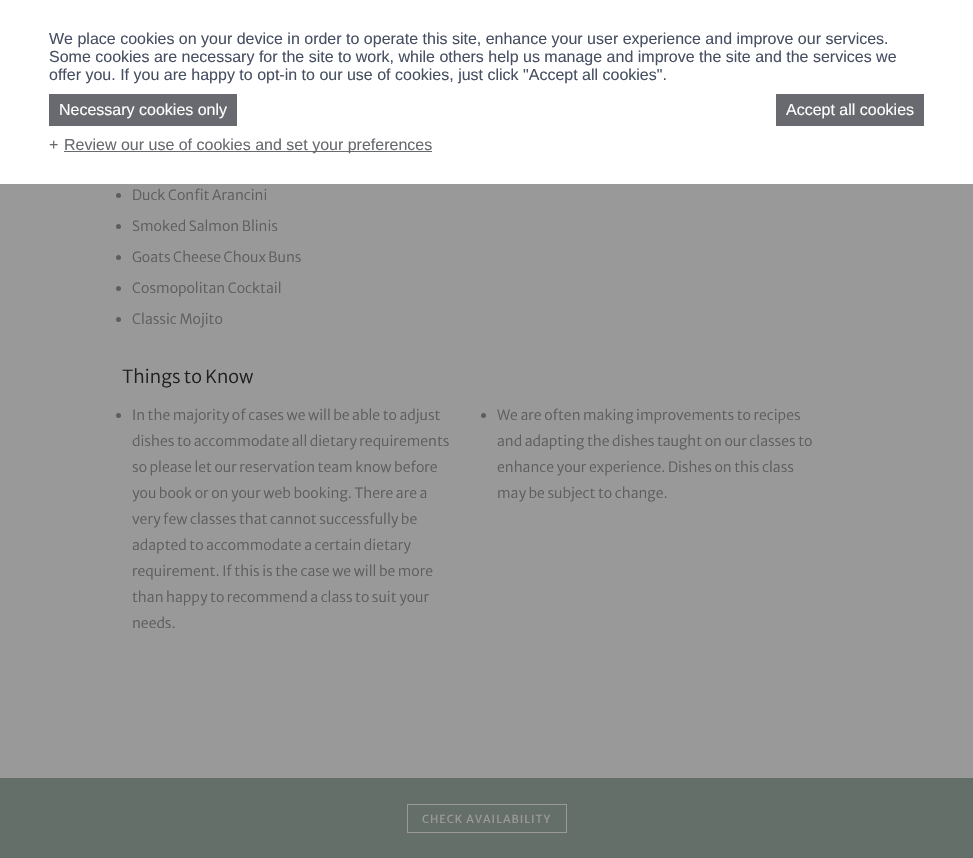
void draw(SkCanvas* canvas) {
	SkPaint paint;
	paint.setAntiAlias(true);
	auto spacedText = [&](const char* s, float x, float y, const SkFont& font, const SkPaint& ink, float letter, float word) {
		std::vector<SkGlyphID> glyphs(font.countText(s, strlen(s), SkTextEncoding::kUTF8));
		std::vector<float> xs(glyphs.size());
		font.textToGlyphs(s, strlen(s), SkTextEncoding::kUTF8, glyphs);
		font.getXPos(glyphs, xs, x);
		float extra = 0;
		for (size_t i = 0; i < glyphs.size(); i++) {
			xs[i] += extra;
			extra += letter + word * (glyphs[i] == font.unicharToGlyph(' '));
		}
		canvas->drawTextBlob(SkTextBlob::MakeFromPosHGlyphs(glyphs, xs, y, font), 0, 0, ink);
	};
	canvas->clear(0xff999999);
	paint.setColor(0xffffffff);
	canvas->drawRect(SkRect::MakeXYWH(0, 0, 973, 184), paint);
	SkFont f1(fontMgr->matchFamilyStyle("Liberation Sans", SkFontStyle::Normal()), 16);
	f1.setSubpixel(true);
	paint.setColor(0xff474f62);
	canvas->drawString("We place cookies on your device in order to operate this site, enhance your user experience and improve our services.", 49, 44, f1, paint);
	canvas->drawString("Some cookies are necessary for the site to work, while others help us manage and improve the site and the services we", 49, 62, f1, paint);
	canvas->drawString("offer you. If you are happy to opt-in to our use of cookies, just click \"Accept all cookies\".", 49, 80, f1, paint);
	paint.setColor(0xff696a6f);
	canvas->drawRect(SkRect::MakeXYWH(49, 94, 188, 32), paint);
	paint.setColor(0xffffffff);
	canvas->drawString("Necessary cookies only", 59, 115, f1, paint);
	paint.setColor(0xff696a6f);
	canvas->drawRect(SkRect::MakeXYWH(776, 94, 148, 32), paint);
	paint.setColor(0xffffffff);
	canvas->drawString("Accept all cookies", 786, 115, f1, paint);
	paint.setColor(0xff696a6f);
	canvas->drawString("+", 49, 150, f1, paint);
	canvas->drawRect(SkRect::MakeXYWH(64, 151, 368, 1), paint);
	canvas->drawString("Review our use of cookies and set your preferences", 64, 150, f1, paint);
	paint.setColor(0xff5d5d5e);
	canvas->drawCircle(118.5, 195.5, 2.5, paint);
	SkFont f2(fontMgr->matchFamilyStyle("Merriweather Sans", SkFontStyle(300, SkFontStyle::kNormal_Width, SkFontStyle::kUpright_Slant)), 14);
	f2.setSubpixel(true);
	canvas->drawString("Duck Confit Arancini", 132, 200, f2, paint);
	canvas->drawCircle(118.5, 226.5, 2.5, paint);
	canvas->drawString("Smoked Salmon Blinis", 132, 231, f2, paint);
	canvas->drawCircle(118.5, 257.5, 2.5, paint);
	canvas->drawString("Goats Cheese Choux Buns", 132, 262, f2, paint);
	canvas->drawCircle(118.5, 288.5, 2.5, paint);
	canvas->drawString("Cosmopolitan Cocktail", 132, 293, f2, paint);
	canvas->drawCircle(118.5, 319.5, 2.5, paint);
	canvas->drawString("Classic Mojito", 132, 324, f2, paint);
	SkFont f3(fontMgr->matchFamilyStyle("Merriweather Sans", SkFontStyle(300, SkFontStyle::kNormal_Width, SkFontStyle::kUpright_Slant)), 18);
	f3.setSubpixel(true);
	paint.setColor(0xff1f1f1f);
	canvas->drawString("Things to Know", 122, 383, f3, paint);
	paint.setColor(0xff5d5d5e);
	canvas->drawCircle(118.5, 415.5, 2.5, paint);
	canvas->drawString("In the majority of cases we will be able to adjust", 132, 420, f2, paint);
	canvas->drawString("dishes to accommodate all dietary requirements", 132, 446, f2, paint);
	canvas->drawString("so please let our reservation team know before", 132, 472, f2, paint);
	canvas->drawString("you book or on your web booking. There are a", 132, 498, f2, paint);
	canvas->drawString("very few classes that cannot successfully be", 132, 524, f2, paint);
	canvas->drawString("adapted to accommodate a certain dietary", 132, 550, f2, paint);
	canvas->drawString("requirement. If this is the case we will be more", 132, 576, f2, paint);
	canvas->drawString("than happy to recommend a class to suit your", 132, 602, f2, paint);
	canvas->drawString("needs.", 132, 628, f2, paint);
	canvas->drawCircle(483.5, 415.5, 2.5, paint);
	canvas->drawString("We are often making improvements to recipes", 497, 420, f2, paint);
	canvas->drawString("and adapting the dishes taught on our classes to", 497, 446, f2, paint);
	canvas->drawString("enhance your experience. Dishes on this class", 497, 472, f2, paint);
	canvas->drawString("may be subject to change.", 497, 498, f2, paint);
	paint.setColor(0xff656f6a);
	canvas->drawRect(SkRect::MakeXYWH(0, 778, 973, 80), paint);
	paint.setStroke(true);
	paint.setStrokeWidth(1);
	paint.setColor(0xff999999);
	canvas->drawRect(SkRect::MakeXYWH(407.5, 804.5, 159, 28), paint);
	SkFont f4(fontMgr->matchFamilyStyle("Merriweather Sans", SkFontStyle::Normal()), 11);
	f4.setSubpixel(true);
	paint.setStroke(false);
	spacedText("CHECK AVAILABILITY", 422, 823, f4, paint, 1, 0);
}
